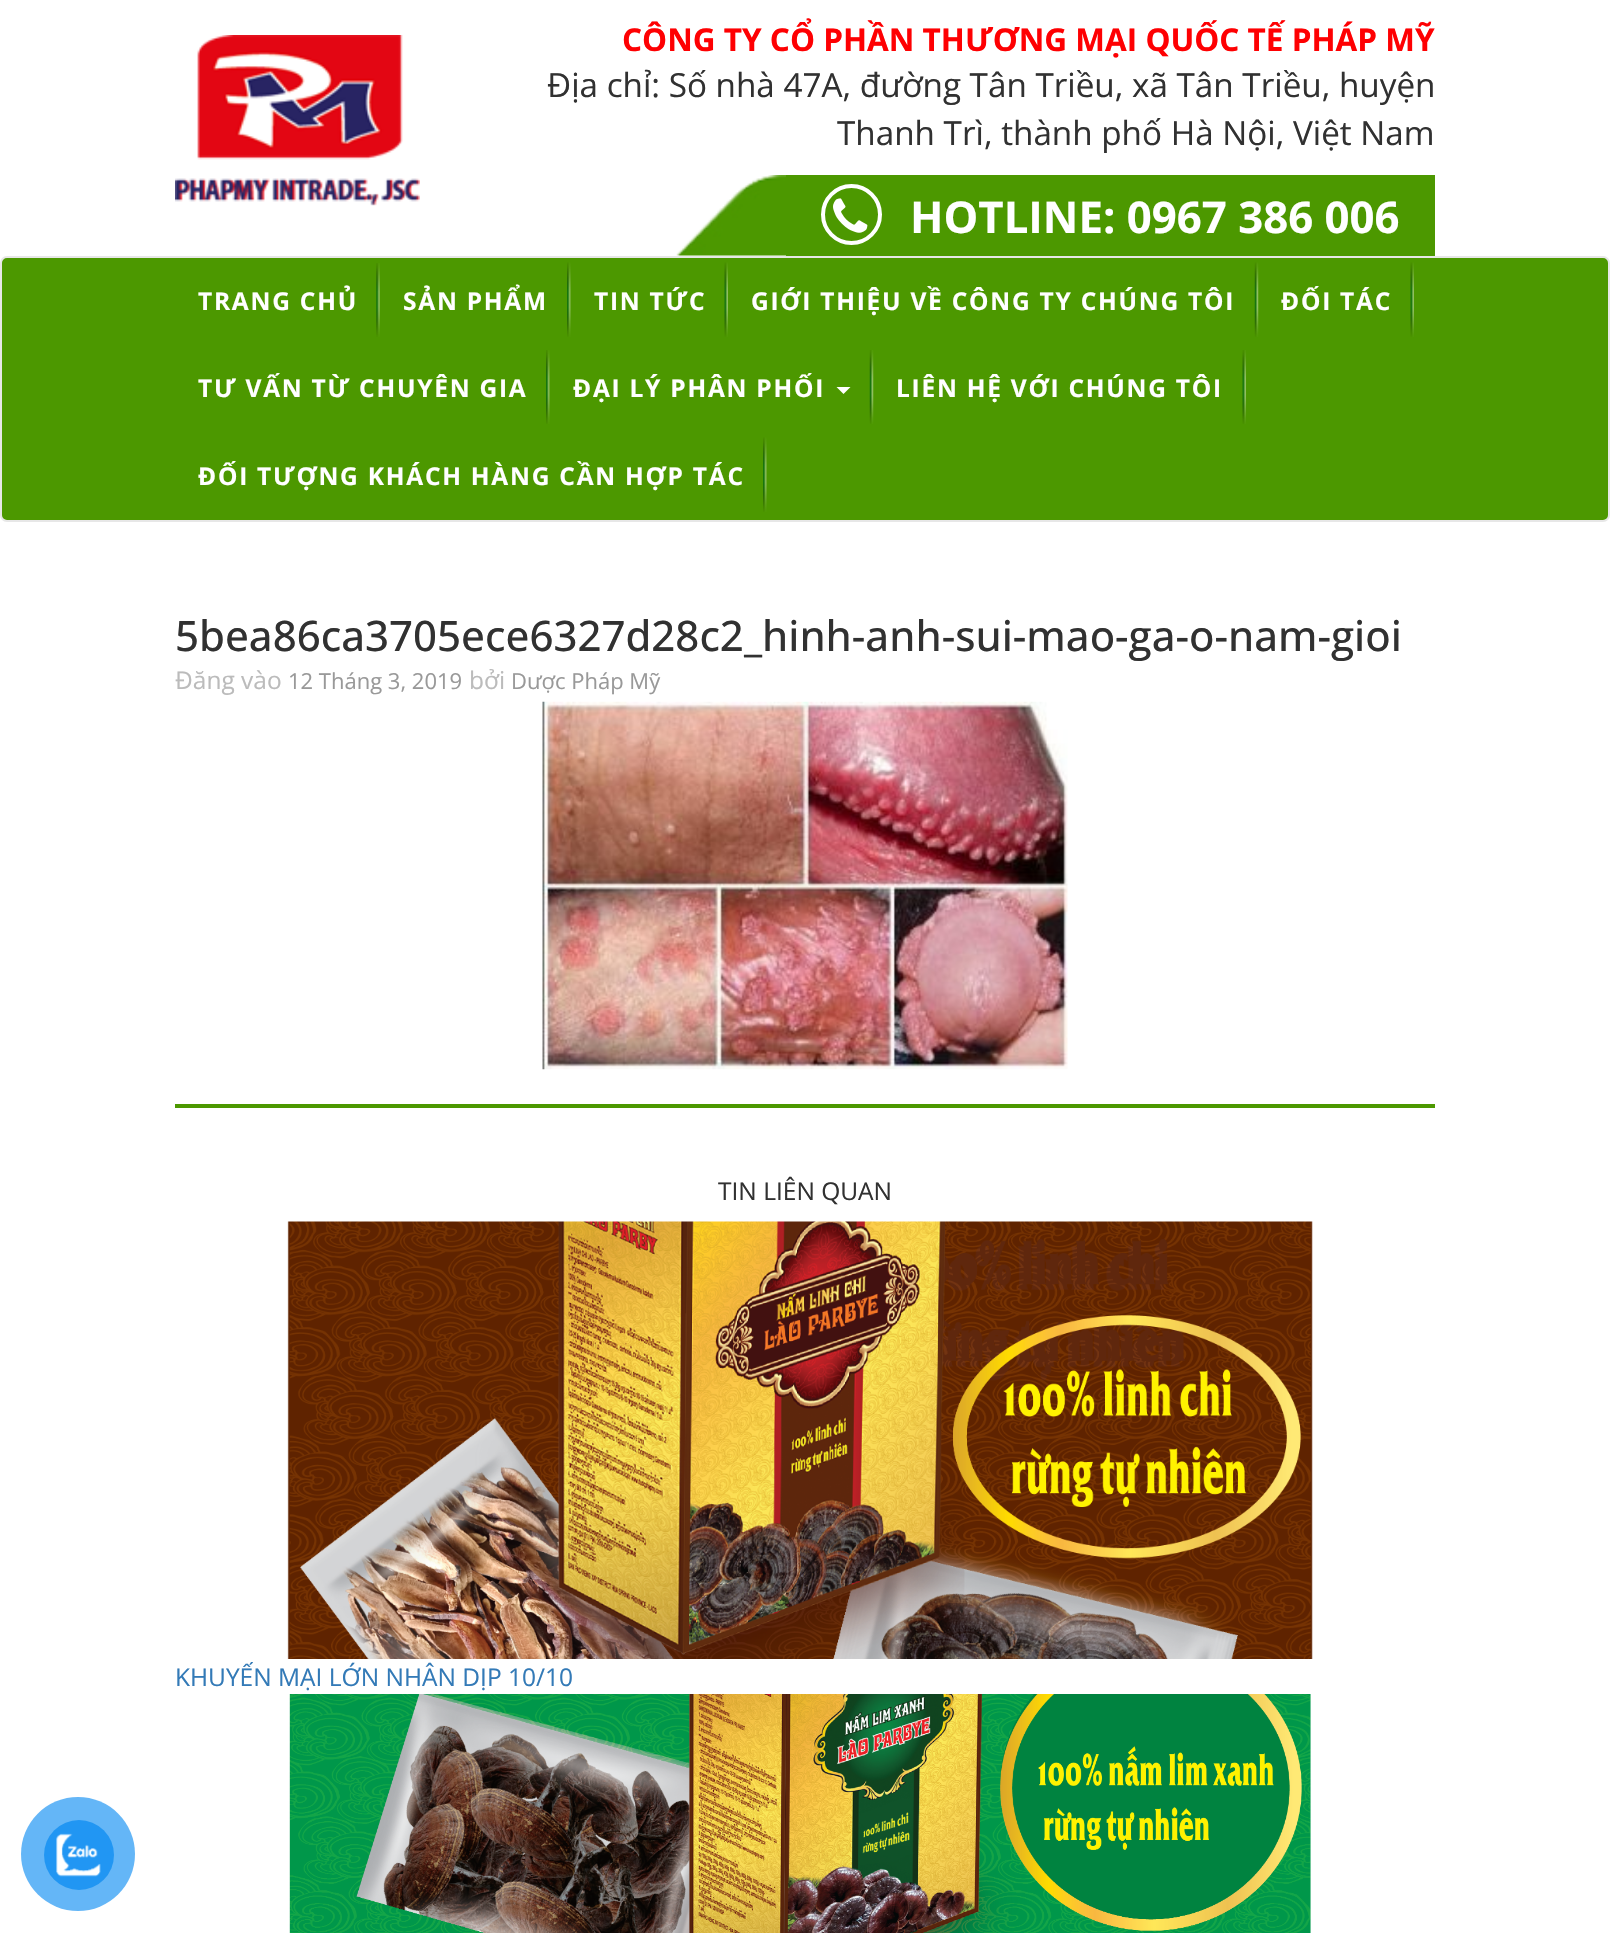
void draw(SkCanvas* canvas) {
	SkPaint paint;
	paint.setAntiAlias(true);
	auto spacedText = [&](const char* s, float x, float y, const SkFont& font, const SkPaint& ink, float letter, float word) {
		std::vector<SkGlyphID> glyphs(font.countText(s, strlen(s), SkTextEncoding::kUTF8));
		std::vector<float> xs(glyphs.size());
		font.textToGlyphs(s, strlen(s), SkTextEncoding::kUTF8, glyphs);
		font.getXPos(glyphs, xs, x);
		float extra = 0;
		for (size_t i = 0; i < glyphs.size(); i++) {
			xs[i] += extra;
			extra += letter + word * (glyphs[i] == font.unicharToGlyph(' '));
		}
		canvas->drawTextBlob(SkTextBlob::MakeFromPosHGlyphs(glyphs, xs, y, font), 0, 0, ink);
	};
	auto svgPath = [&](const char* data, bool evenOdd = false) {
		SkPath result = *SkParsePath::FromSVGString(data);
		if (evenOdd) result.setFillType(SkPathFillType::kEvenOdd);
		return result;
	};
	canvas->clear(0xffffffff);
	canvas->drawImageRect(SkImages::DeferredFromEncodedData(SkData::MakeFromFileName("img1.png")), SkRect::MakeXYWH(175, 35, 245, 171), SkSamplingOptions());
	SkFont f1(fontMgr->matchFamilyStyle("Open Sans", SkFontStyle::Bold()), 31.5);
	f1.setSubpixel(true);
	paint.setColor(0xfffe0002);
	canvas->drawString("CÔNG TY CỔ PHẦN THƯƠNG MẠI QUỐC TẾ PHÁP MỸ", 622, 51, f1, paint);
	SkFont f2(fontMgr->matchFamilyStyle("Open Sans", SkFontStyle::Normal()), 33.25);
	f2.setSubpixel(true);
	paint.setColor(0xff313131);
	canvas->drawString("Địa chỉ: Số nhà 47A, đường Tân Triều, xã Tân Triều, huyện", 547, 97, f2, paint);
	canvas->drawString("Thanh Trì, thành phố Hà Nội, Việt Nam", 837, 145, f2, paint);
	paint.setColor(0xff4c9800);
	canvas->drawRect(SkRect::MakeXYWH(786, 175, 649, 81), paint);
	canvas->drawImageRect(SkImages::DeferredFromEncodedData(SkData::MakeFromFileName("img2.png")), SkRect::MakeXYWH(676, 175, 110, 81), SkSamplingOptions());
	paint.setStroke(true);
	paint.setStrokeWidth(4);
	paint.setColor(0xffffffff);
	canvas->drawCircle(851.5, 214.5, 28.5, paint);
	canvas->drawImageRect(SkImages::DeferredFromEncodedData(SkData::MakeFromFileName("img3.png")), SkRect::MakeXYWH(833, 198, 35, 35), SkSamplingOptions());
	SkFont f3(fontMgr->matchFamilyStyle("Open Sans", SkFontStyle::Bold()), 43.75);
	f3.setSubpixel(true);
	paint.setStroke(false);
	canvas->drawString("HOTLINE: 0967 386 006", 910, 233, f3, paint);
	paint.setColor(0xff4c9800);
	canvas->drawRoundRect(SkRect::MakeXYWH(1, 257, 1608, 264), 6, 6, paint);
	paint.setStroke(true);
	paint.setStrokeWidth(2);
	paint.setColor(0xffe7e7e7);
	canvas->drawRoundRect(SkRect::MakeXYWH(1, 257, 1608, 264), 6, 6, paint);
	canvas->drawImageRect(SkImages::DeferredFromEncodedData(SkData::MakeFromFileName("img4.png")), SkRect::MakeXYWH(376, 263, 4, 74), SkSamplingOptions());
	SkFont f4(fontMgr->matchFamilyStyle("Open Sans", SkFontStyle::Bold()), 24.5);
	f4.setSubpixel(true);
	paint.setStroke(false);
	paint.setColor(0xffffffff);
	spacedText("TRANG CHỦ", 198, 310, f4, paint, 1.75, 0);
	canvas->drawImageRect(SkImages::DeferredFromEncodedData(SkData::MakeFromFileName("img5.png")), SkRect::MakeXYWH(567, 262, 4, 75), SkSamplingOptions());
	spacedText("SẢN PHẨM", 403, 310, f4, paint, 1.75, 0);
	canvas->drawImageRect(SkImages::DeferredFromEncodedData(SkData::MakeFromFileName("img6.png")), SkRect::MakeXYWH(724, 262, 4, 75), SkSamplingOptions());
	spacedText("TIN TỨC", 594, 310, f4, paint, 1.75, 0);
	canvas->drawImageRect(SkImages::DeferredFromEncodedData(SkData::MakeFromFileName("img7.png")), SkRect::MakeXYWH(1254, 262, 5, 75), SkSamplingOptions());
	spacedText("GIỚI THIỆU VỀ CÔNG TY CHÚNG TÔI", 751, 310, f4, paint, 1.75, 0);
	canvas->drawImageRect(SkImages::DeferredFromEncodedData(SkData::MakeFromFileName("img6.png")), SkRect::MakeXYWH(1410, 262, 4, 75), SkSamplingOptions());
	spacedText("ĐỐI TÁC", 1281, 310, f4, paint, 1.75, 0);
	canvas->drawImageRect(SkImages::DeferredFromEncodedData(SkData::MakeFromFileName("img8.png")), SkRect::MakeXYWH(546, 350, 4, 74), SkSamplingOptions());
	spacedText("TƯ VẤN TỪ CHUYÊN GIA", 198, 397, f4, paint, 1.75, 0);
	canvas->drawImageRect(SkImages::DeferredFromEncodedData(SkData::MakeFromFileName("img9.png")), SkRect::MakeXYWH(869, 350, 5, 74), SkSamplingOptions());
	spacedText("ĐẠI LÝ PHÂN PHỐI", 573, 397, f4, paint, 1.75, 0);
	canvas->drawPath(svgPath("M836.5 387H850.5L843.5 394Z"), paint);
	canvas->drawImageRect(SkImages::DeferredFromEncodedData(SkData::MakeFromFileName("img10.png")), SkRect::MakeXYWH(1242, 350, 4, 74), SkSamplingOptions());
	spacedText("LIÊN HỆ VỚI CHÚNG TÔI", 896, 397, f4, paint, 1.75, 0);
	canvas->drawImageRect(SkImages::DeferredFromEncodedData(SkData::MakeFromFileName("img5.png")), SkRect::MakeXYWH(763, 437, 4, 75), SkSamplingOptions());
	spacedText("ĐỐI TƯỢNG KHÁCH HÀNG CẦN HỢP TÁC", 198, 485, f4, paint, 1.75, 0);
	SkFont f5(fontMgr->matchFamilyStyle("Open Sans", SkFontStyle(500, SkFontStyle::kNormal_Width, SkFontStyle::kUpright_Slant)), 42);
	f5.setSubpixel(true);
	paint.setColor(0xff313131);
	canvas->drawString("5bea86ca3705ece6327d28c2_hinh-anh-sui-mao-ga-o-nam-gioi", 175, 651, f5, paint);
	SkFont f6(fontMgr->matchFamilyStyle("Open Sans", SkFontStyle::Normal()), 24.5);
	f6.setSubpixel(true);
	paint.setColor(0xffbbbbbb);
	canvas->drawString("Đăng vào", 175, 689, f6, paint);
	SkFont f7(fontMgr->matchFamilyStyle("Open Sans", SkFontStyle::Normal()), 22);
	f7.setSubpixel(true);
	paint.setColor(0xff999999);
	canvas->drawString("12 Tháng 3, 2019", 288, 689, f7, paint);
	paint.setColor(0xffbbbbbb);
	canvas->drawString("bởi", 469, 689, f6, paint);
	paint.setColor(0xff999999);
	canvas->drawString("Dược Pháp Mỹ", 511, 689, f7, paint);
	canvas->drawImageRect(SkImages::DeferredFromEncodedData(SkData::MakeFromFileName("img11.png")), SkRect::MakeXYWH(542, 701, 526, 369), SkSamplingOptions());
	paint.setColor(0xff4c9800);
	canvas->drawRect(SkRect::MakeXYWH(175, 1104, 1260, 4), paint);
	paint.setColor(0xff313131);
	canvas->drawString("TIN LIÊN QUAN", 718, 1200, f6, paint);
	canvas->drawImageRect(SkImages::DeferredFromEncodedData(SkData::MakeFromFileName("img12.png")), SkRect::MakeXYWH(287, 1221, 1026, 438), SkSamplingOptions());
	paint.setColor(0xff337ab7);
	canvas->drawString("KHUYẾN MẠI LỚN NHÂN DỊP 10/10", 175, 1686, f6, paint);
	canvas->drawImageRect(SkImages::DeferredFromEncodedData(SkData::MakeFromFileName("img13.png")), SkRect::MakeXYWH(289, 1694, 1022, 239), SkSamplingOptions());
	paint.setColor(0xff64b6f7);
	canvas->drawCircle(78, 1854, 57, paint);
	paint.setColor(0xff2196f3);
	canvas->drawCircle(79, 1855, 35, paint);
	canvas->drawImageRect(SkImages::DeferredFromEncodedData(SkData::MakeFromFileName("img14.png")), SkRect::MakeXYWH(56, 1833, 45, 44), SkSamplingOptions());
}
